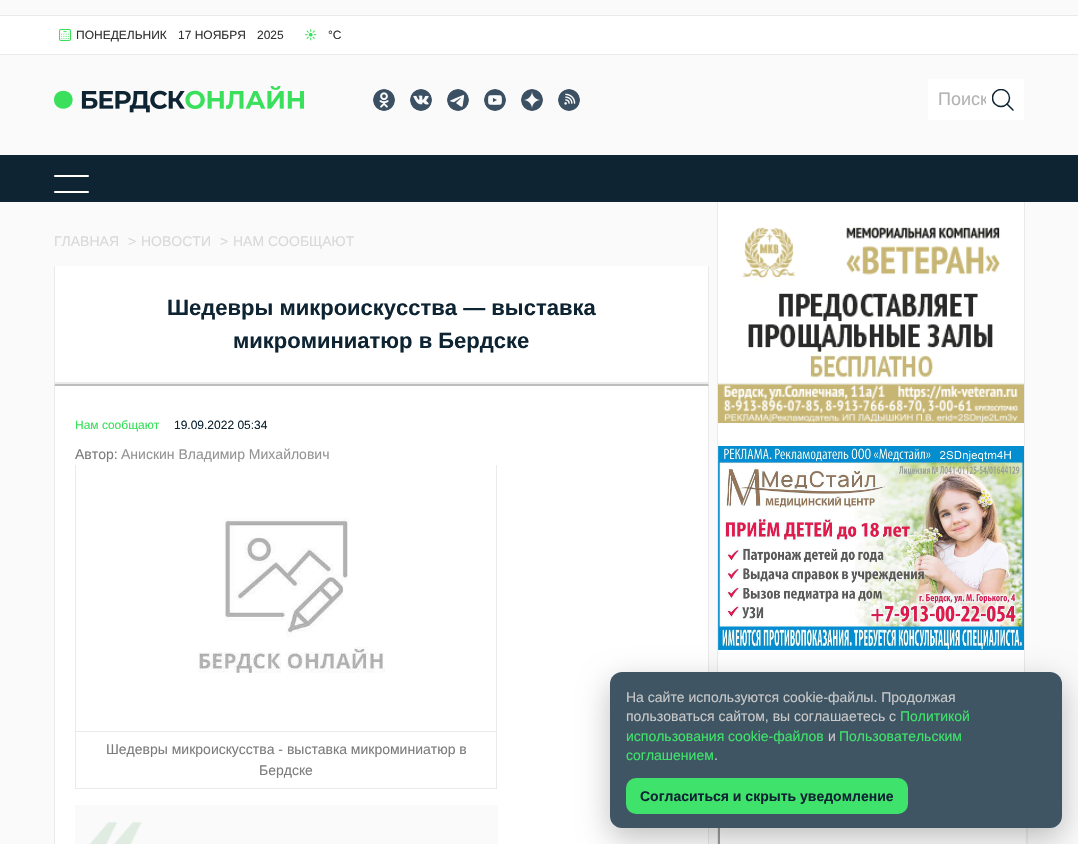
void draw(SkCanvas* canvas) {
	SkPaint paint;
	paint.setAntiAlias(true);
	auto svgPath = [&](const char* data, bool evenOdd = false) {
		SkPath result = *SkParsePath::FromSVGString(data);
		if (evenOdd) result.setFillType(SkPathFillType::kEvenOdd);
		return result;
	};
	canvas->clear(0xfffafafa);
	paint.setColor(0xffffffff);
	canvas->drawRect(SkRect::MakeXYWH(0, 16, 1078, 38), paint);
	paint.setColor(0xffeaeaea);
	canvas->drawRect(SkRect::MakeXYWH(0, 15, 1078, 1), paint);
	canvas->drawRect(SkRect::MakeXYWH(0, 54, 1078, 1), paint);
	canvas->drawImageRect(SkImages::DeferredFromEncodedData(SkData::MakeFromFileName("img1.png")), SkRect::MakeXYWH(59, 29, 12, 12), SkSamplingOptions());
	SkFont f1(fontMgr->matchFamilyStyle("Liberation Sans", SkFontStyle::Normal()), 12);
	f1.setSubpixel(true);
	paint.setColor(0xff333333);
	canvas->drawString("ПОНЕДЕЛЬНИК", 76, 39, f1, paint);
	canvas->drawString("17 НОЯБРЯ", 178, 39, f1, paint);
	canvas->drawString("2025", 257, 39, f1, paint);
	canvas->drawImageRect(SkImages::DeferredFromEncodedData(SkData::MakeFromFileName("img2.png")), SkRect::MakeXYWH(305, 29, 12, 12), SkSamplingOptions());
	canvas->drawString("°C", 328, 39, f1, paint);
	canvas->drawImageRect(SkImages::DeferredFromEncodedData(SkData::MakeFromFileName("img3.png")), SkRect::MakeXYWH(54, 86, 250, 27), SkSamplingOptions());
	canvas->drawImageRect(SkImages::DeferredFromEncodedData(SkData::MakeFromFileName("img4.png")), SkRect::MakeXYWH(373, 89, 22, 22), SkSamplingOptions());
	canvas->drawImageRect(SkImages::DeferredFromEncodedData(SkData::MakeFromFileName("img5.png")), SkRect::MakeXYWH(410, 89, 22, 22), SkSamplingOptions());
	canvas->drawImageRect(SkImages::DeferredFromEncodedData(SkData::MakeFromFileName("img6.png")), SkRect::MakeXYWH(447, 89, 22, 22), SkSamplingOptions());
	canvas->drawImageRect(SkImages::DeferredFromEncodedData(SkData::MakeFromFileName("img7.png")), SkRect::MakeXYWH(484, 89, 22, 22), SkSamplingOptions());
	canvas->drawImageRect(SkImages::DeferredFromEncodedData(SkData::MakeFromFileName("img8.png")), SkRect::MakeXYWH(521, 89, 22, 22), SkSamplingOptions());
	canvas->drawImageRect(SkImages::DeferredFromEncodedData(SkData::MakeFromFileName("img9.png")), SkRect::MakeXYWH(558, 89, 22, 22), SkSamplingOptions());
	paint.setColor(0xffffffff);
	canvas->drawRect(SkRect::MakeXYWH(928, 79, 96, 41), paint);
	canvas->save();
	canvas->clipRect(SkRect::MakeXYWH(992, 89, 22, 22));
	paint.setStroke(true);
	paint.setStrokeWidth(1.5);
	paint.setColor(0xff0e2433);
	canvas->drawCircle(1001, 98, 8.5, paint);
	canvas->restore();
	paint.setStrokeCap(SkPaint::kRound_Cap);
	paint.setStrokeJoin(SkPaint::kRound_Join);
	canvas->drawPath(svgPath("M1007 104L1013 110"), paint);
	canvas->save();
	canvas->clipRect(SkRect::MakeXYWH(938, 89, 48, 21));
	SkFont f2(fontMgr->matchFamilyStyle("Liberation Sans", SkFontStyle::Normal()), 18);
	f2.setSubpixel(true);
	paint.setStroke(false);
	paint.setColor(0xffb3b3b3);
	canvas->drawString("Поиск", 938, 105, f2, paint);
	canvas->restore();
	paint.setColor(0xff0e2433);
	canvas->drawRect(SkRect::MakeXYWH(0, 155, 1078, 47), paint);
	paint.setColor(0xffffffff);
	canvas->drawRoundRect(SkRect::MakeXYWH(54, 175, 35, 2), 1, 1, paint);
	canvas->drawRoundRect(SkRect::MakeXYWH(54, 191, 35, 2), 1, 1, paint);
	SkFont f3(fontMgr->matchFamilyStyle("Liberation Sans", SkFontStyle::Normal()), 14);
	f3.setSubpixel(true);
	paint.setColor(0xffd9d9d9);
	canvas->drawString("ГЛАВНАЯ", 54, 246, f3, paint);
	canvas->drawString(">", 128, 246, f3, paint);
	canvas->drawString("НОВОСТИ", 141, 246, f3, paint);
	canvas->drawString(">", 220, 246, f3, paint);
	canvas->drawString("НАМ СООБЩАЮТ", 233, 246, f3, paint);
	paint.setColor(0xffffffff);
	canvas->drawRect(SkRect::MakeXYWH(54, 266, 655, 120), paint);
	paint.setColor(0xffeaeaea);
	canvas->drawPath(svgPath("M709 266V386L708 384V266Z"), paint);
	paint.setColor(0xffbebebe);
	canvas->drawPath(svgPath("M709 386H54L55 384H708Z"), paint);
	paint.setColor(0xffeaeaea);
	canvas->drawPath(svgPath("M54 386V266H55V384Z"), paint);
	canvas->drawRect(SkRect::MakeXYWH(55, 382, 653, 2), paint);
	SkFont f4(fontMgr->matchFamilyStyle("Liberation Sans", SkFontStyle::Bold()), 22);
	f4.setSubpixel(true);
	paint.setColor(0xff0e2433);
	canvas->drawString("Шедевры микроискусства — выставка", 167, 315, f4, paint);
	canvas->drawString("микроминиатюр в Бердске", 233, 348, f4, paint);
	paint.setColor(0xffffffff);
	canvas->drawRect(SkRect::MakeXYWH(55, 386, 653, 458), paint);
	paint.setColor(0xffeaeaea);
	canvas->drawPath(svgPath("M709 386V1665L708 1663V386Z"), paint);
	canvas->drawPath(svgPath("M54 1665V386H55V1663Z"), paint);
	paint.setColor(0xff3ae05b);
	canvas->drawString("Нам сообщают", 75, 429, f1, paint);
	paint.setColor(0xff0e2433);
	canvas->drawString("19.09.2022 05:34", 174, 429, f1, paint);
	paint.setColor(0xff7c7c7c);
	canvas->drawString("Автор:", 75, 459, f3, paint);
	paint.setColor(0xff949494);
	canvas->drawString("Анискин Владимир Михайлович", 121, 459, f3, paint);
	paint.setColor(0xffeaeaea);
	canvas->drawRect(SkRect::MakeXYWH(496, 465, 1, 324), paint);
	canvas->drawRect(SkRect::MakeXYWH(75, 788, 422, 1), paint);
	canvas->drawRect(SkRect::MakeXYWH(75, 465, 1, 324), paint);
	canvas->drawRect(SkRect::MakeXYWH(76, 731, 420, 1), paint);
	canvas->drawImageRect(SkImages::DeferredFromEncodedData(SkData::MakeFromFileName("img10.png")), SkRect::MakeXYWH(197, 517, 188, 156), SkSamplingOptions());
	paint.setColor(0xff7c7c7c);
	canvas->drawString("Шедевры микроискусства - выставка микроминиатюр в", 106, 754, f3, paint);
	canvas->drawString("Бердске", 259, 775, f3, paint);
	canvas->drawImageRect(SkImages::DeferredFromEncodedData(SkData::MakeFromFileName("img11.png")), SkRect::MakeXYWH(75, 805, 423, 39), SkSamplingOptions());
	paint.setColor(0xffffffff);
	canvas->drawRect(SkRect::MakeXYWH(718, 202, 306, 642), paint);
	paint.setColor(0xffeaeaea);
	canvas->drawPath(svgPath("M1025 202V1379L1024 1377V202Z"), paint);
	canvas->drawPath(svgPath("M717 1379V202H718V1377Z"), paint);
	canvas->drawImageRect(SkImages::DeferredFromEncodedData(SkData::MakeFromFileName("img12.png")), SkRect::MakeXYWH(718, 227, 306, 196), SkSamplingOptions());
	canvas->drawImageRect(SkImages::DeferredFromEncodedData(SkData::MakeFromFileName("img13.png")), SkRect::MakeXYWH(718, 446, 306, 204), SkSamplingOptions());
	paint.setColor(0xff9f9f9f);
	canvas->drawPath(svgPath("M718 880V672L720 674V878Z"), paint);
	canvas->drawImageRect(SkImages::DeferredFromEncodedData(SkData::MakeFromFileName("img14.png")), SkRect::MakeXYWH(724, 828, 301, 16), SkSamplingOptions());
	paint.setColor(0xffeeeeee);
	canvas->drawPath(svgPath("M1028 672V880L1026 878V674Z"), paint);
	paint.setColor(0x40000000);
	paint.setMaskFilter(SkMaskFilter::MakeBlur(kNormal_SkBlurStyle, 15));
	canvas->drawRoundRect(SkRect::MakeXYWH(610, 682, 452, 156), 12, 12, paint);
	paint.setMaskFilter(nullptr);
	paint.setColor(0xff3f5564);
	canvas->drawRoundRect(SkRect::MakeXYWH(610, 672, 452, 156), 12, 12, paint);
	paint.setColor(0xffc8c8c8);
	canvas->drawString("На сайте используются cookie-файлы. Продолжая", 626, 702, f3, paint);
	canvas->drawString("пользоваться сайтом, вы соглашаетесь с", 626, 721, f3, paint);
	paint.setColor(0xff3fe26a);
	canvas->drawString("Политикой", 900, 721, f3, paint);
	canvas->drawString("использования cookie-файлов", 626, 741, f3, paint);
	paint.setColor(0xffc8c8c8);
	canvas->drawString("и", 828, 741, f3, paint);
	paint.setColor(0xff3fe26a);
	canvas->drawString("Пользовательским", 839, 741, f3, paint);
	canvas->drawString("соглашением", 626, 760, f3, paint);
	paint.setColor(0xffc8c8c8);
	canvas->drawString(".", 714, 760, f3, paint);
	paint.setColor(0xff3fe26a);
	canvas->drawRoundRect(SkRect::MakeXYWH(626, 778, 282, 36), 10, 10, paint);
	SkFont f5(fontMgr->matchFamilyStyle("Liberation Sans", SkFontStyle::Bold()), 14);
	f5.setSubpixel(true);
	paint.setColor(0xff0e2433);
	canvas->drawString("Согласиться и скрыть уведомление", 640, 801, f5, paint);
}
